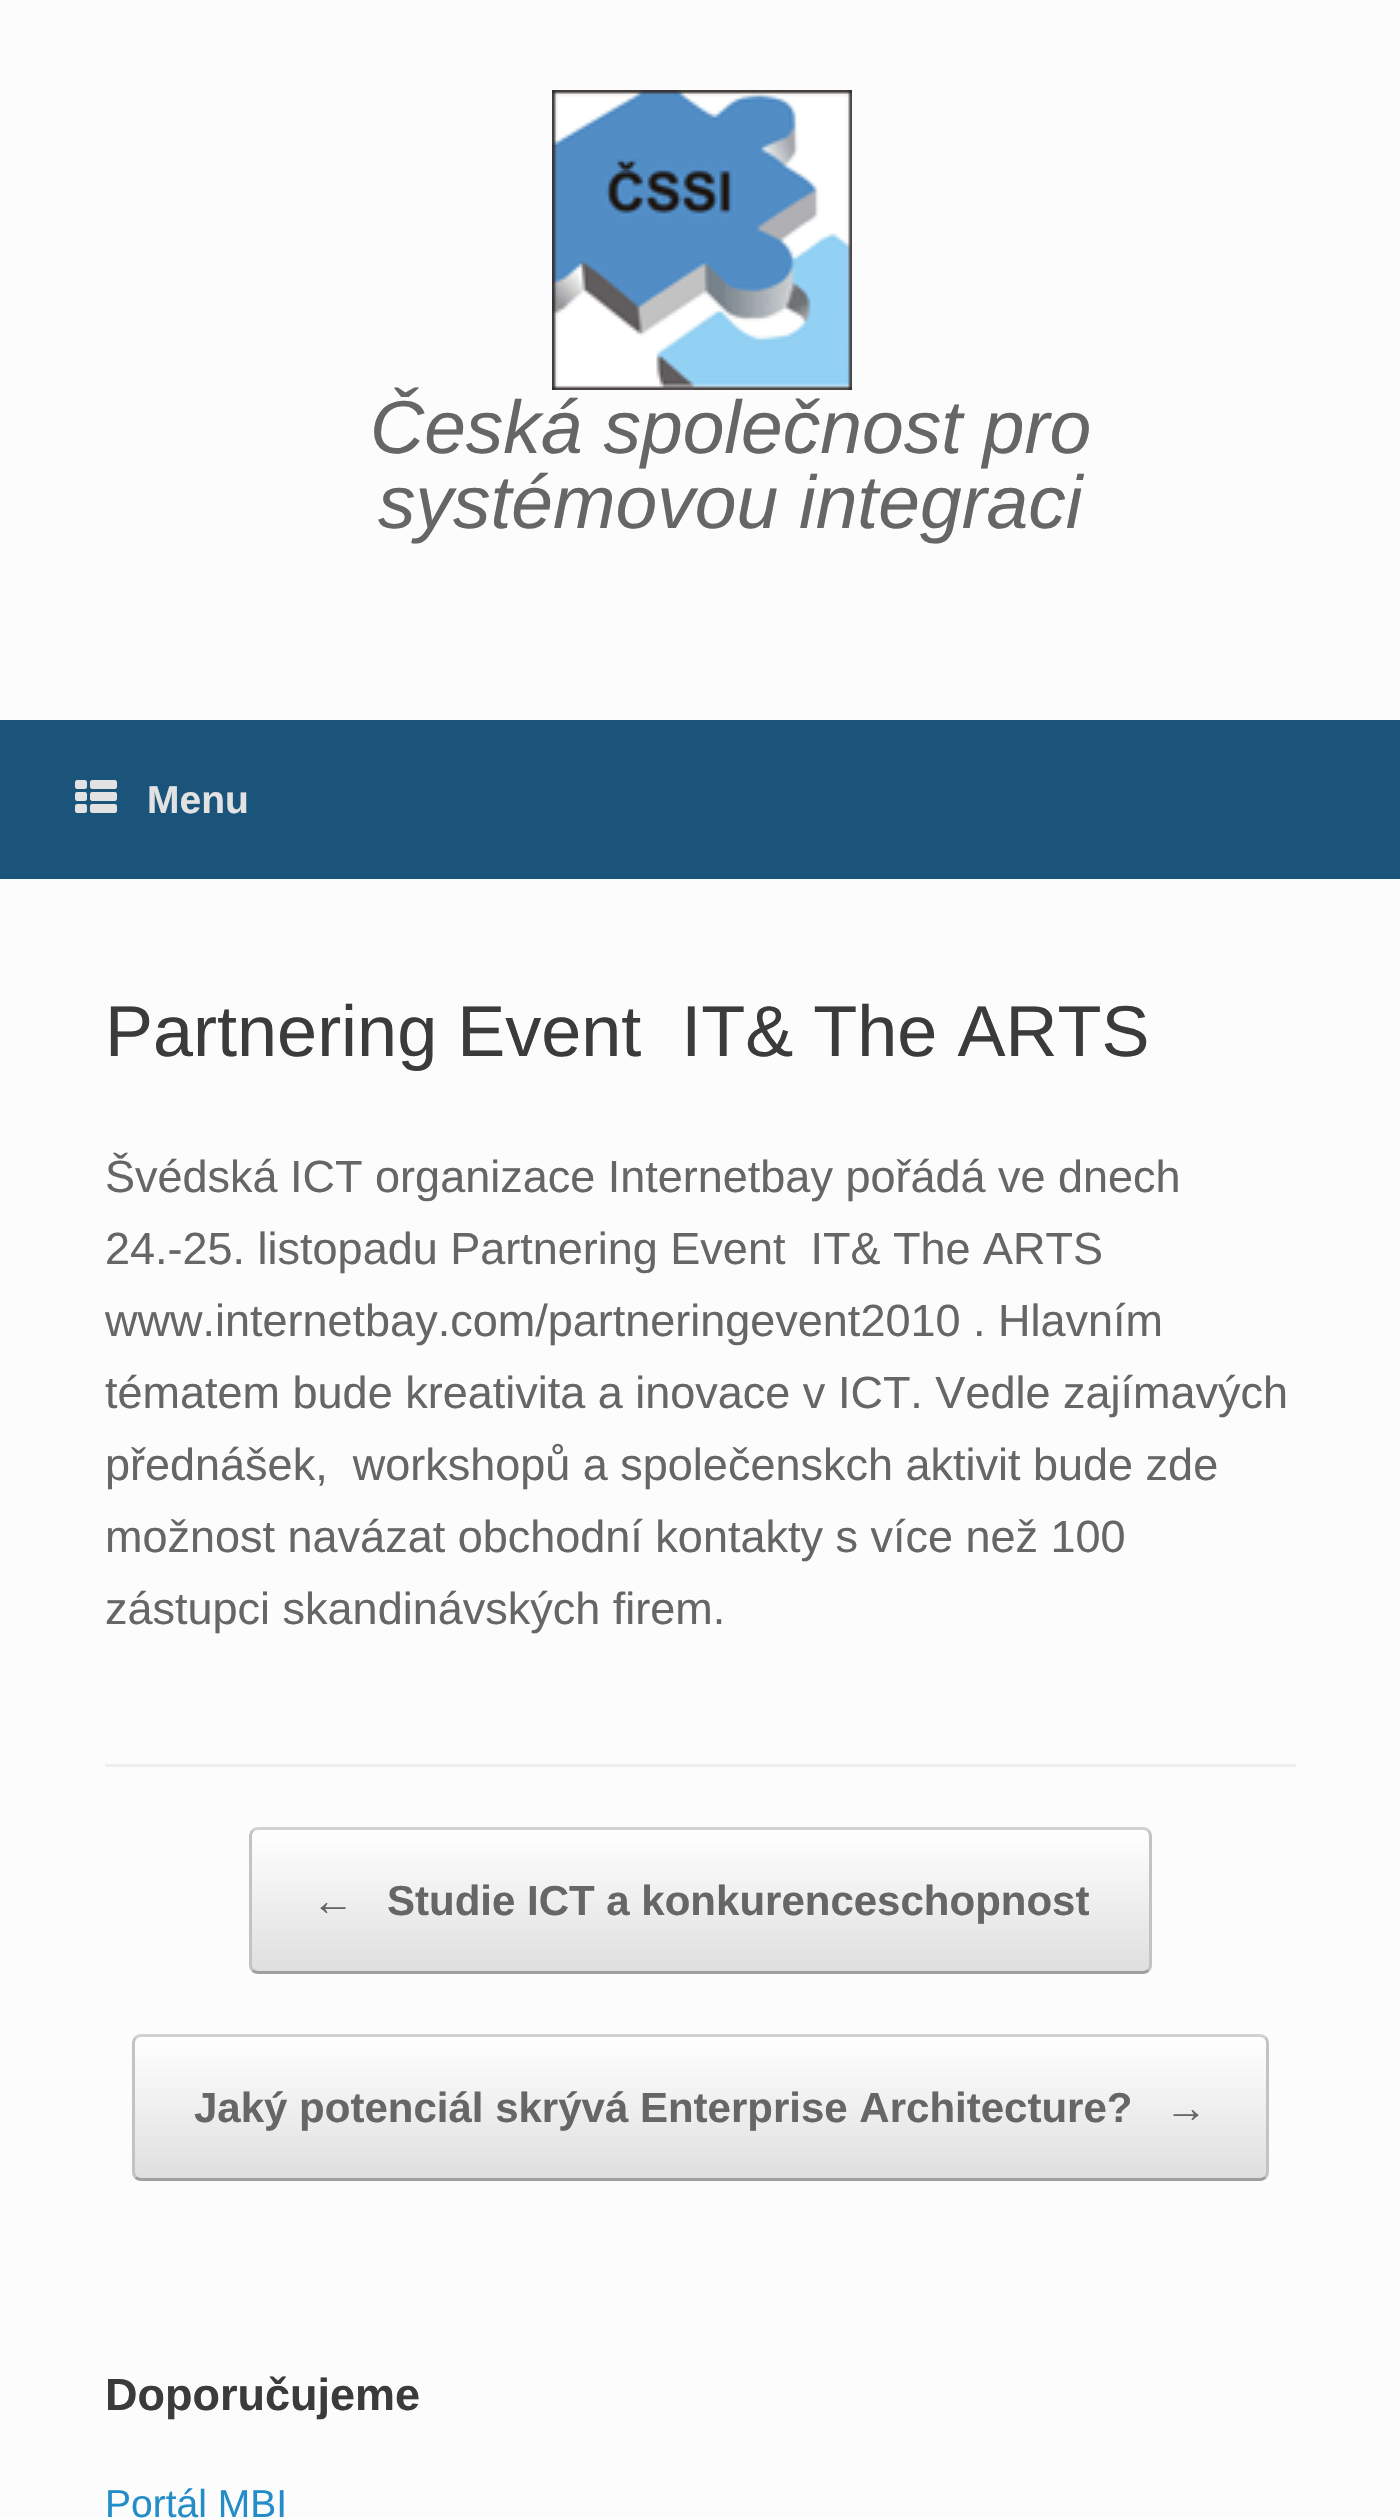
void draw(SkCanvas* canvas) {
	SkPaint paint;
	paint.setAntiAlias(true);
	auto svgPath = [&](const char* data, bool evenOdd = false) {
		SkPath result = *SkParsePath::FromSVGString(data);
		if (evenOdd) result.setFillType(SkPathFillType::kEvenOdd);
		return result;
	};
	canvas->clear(0xfffcfcfc);
	canvas->drawImageRect(SkImages::DeferredFromEncodedData(SkData::MakeFromFileName("img1.png")), SkRect::MakeXYWH(552, 90, 300, 300), SkSamplingOptions());
	SkFont f1(fontMgr->matchFamilyStyle("Liberation Sans", SkFontStyle::Italic()), 75);
	f1.setSubpixel(true);
	paint.setColor(0xff666666);
	canvas->drawString("Česká společnost pro", 370, 453, f1, paint);
	canvas->drawString("systémovou integraci", 378, 528, f1, paint);
	paint.setColor(0xff1a547b);
	canvas->drawRect(SkRect::MakeXYWH(0, 720, 1400, 159), paint);
	canvas->drawImageRect(SkImages::DeferredFromEncodedData(SkData::MakeFromFileName("img2.png")), SkRect::MakeXYWH(75, 780, 42, 33), SkSamplingOptions());
	SkFont f2(fontMgr->matchFamilyStyle("Liberation Sans", SkFontStyle::Bold()), 39);
	f2.setSubpixel(true);
	paint.setColor(0xffe2e2e2);
	canvas->drawString("Menu", 147, 813, f2, paint);
	paint.setColor(0xffeeeeee);
	canvas->drawRect(SkRect::MakeXYWH(105, 1764, 1191, 3), paint);
	SkFont f3(fontMgr->matchFamilyStyle("Liberation Sans", SkFontStyle::Normal()), 72);
	f3.setSubpixel(true);
	paint.setColor(0xff3b3b3b);
	canvas->drawString("Partnering Event  IT& The ARTS", 105, 1056, f3, paint);
	SkFont f4(fontMgr->matchFamilyStyle("Liberation Sans", SkFontStyle::Normal()), 45);
	f4.setSubpixel(true);
	paint.setColor(0xff666666);
	canvas->drawString("Švédská ICT organizace Internetbay pořádá ve dnech", 105, 1192, f4, paint);
	canvas->drawString("24.-25. listopadu Partnering Event  IT& The ARTS", 105, 1264, f4, paint);
	canvas->drawString("www.internetbay.com/partneringevent2010 . Hlavním", 105, 1336, f4, paint);
	canvas->drawString("tématem bude kreativita a inovace v ICT. Vedle zajímavých", 105, 1408, f4, paint);
	canvas->drawString("přednášek,  workshopů a společenskch aktivit bude zde", 105, 1480, f4, paint);
	canvas->drawString("možnost navázat obchodní kontakty s více než 100", 105, 1552, f4, paint);
	canvas->drawString("zástupci skandinávských firem.", 105, 1624, f4, paint);
	canvas->save();
	canvas->clipPath(svgPath("M258 1827H1143C1148 1827 1152 1831 1152 1836V1965C1152 1970 1148 1974 1143 1974H258C253 1974 249 1970 249 1965V1836C249 1831 253 1827 258 1827Z"), true);
	{
		const SkColor colors[] = {0xffdfdfdf, 0xffffffff};
		const float stops[] = {0, 1};
		const SkPoint ends[] = {{252, 1971}, {252, 1830}};
		paint.setShader(SkGradientShader::MakeLinear(ends, colors, stops, 2, SkTileMode::kClamp));
		paint.setAlpha(255);
	}
	canvas->drawRect(SkRect::MakeXYWH(249, 1830, 903, 141), paint);
	canvas->restore();
	paint.setStroke(true);
	paint.setStrokeWidth(3);
	paint.setShader(nullptr);
	paint.setColor(0xffd2d2d2);
	canvas->drawPath(svgPath("M252.5 1830.5C254 1829.5 256 1828.5 258 1828.5H1143C1145 1828.5 1147 1829.5 1148.5 1830.5"), paint);
	paint.setColor(0xffc3c3c3);
	canvas->drawPath(svgPath("M1148.5 1830.5C1149.5 1832 1150.5 1834 1150.5 1836V1965C1150.5 1967 1149.5 1969 1148.5 1970.5"), paint);
	paint.setColor(0xff9f9f9f);
	canvas->drawPath(svgPath("M1148.5 1970.5C1147 1971.5 1145 1972.5 1143 1972.5H258C256 1972.5 254 1971.5 252.5 1970.5"), paint);
	paint.setColor(0xffc3c3c3);
	canvas->drawPath(svgPath("M252.5 1970.5C251.5 1969 250.5 1967 250.5 1965V1836C250.5 1834 251.5 1832 252.5 1830.5"), paint);
	SkFont f5(fontMgr->matchFamilyStyle("Liberation Sans", SkFontStyle::Bold()), 42);
	f5.setSubpixel(true);
	paint.setStroke(false);
	paint.setColor(0xff666666);
	canvas->drawString("←", 312, 1915, f5, paint);
	canvas->drawString("Studie ICT a konkurenceschopnost", 387, 1915, f5, paint);
	canvas->save();
	canvas->clipPath(svgPath("M141 2034H1260C1265 2034 1269 2038 1269 2043V2172C1269 2177 1265 2181 1260 2181H141C136 2181 132 2177 132 2172V2043C132 2038 136 2034 141 2034Z"), true);
	{
		const SkColor colors[] = {0xffdfdfdf, 0xffffffff};
		const float stops[] = {0, 1};
		const SkPoint ends[] = {{135, 2178}, {135, 2037}};
		paint.setShader(SkGradientShader::MakeLinear(ends, colors, stops, 2, SkTileMode::kClamp));
		paint.setAlpha(255);
	}
	canvas->drawRect(SkRect::MakeXYWH(132, 2037, 1137, 141), paint);
	canvas->restore();
	paint.setStroke(true);
	paint.setShader(nullptr);
	paint.setColor(0xffd2d2d2);
	canvas->drawPath(svgPath("M135.5 2037.5C137 2036.5 139 2035.5 141 2035.5H1260C1262 2035.5 1264 2036.5 1265.5 2037.5"), paint);
	paint.setColor(0xffc3c3c3);
	canvas->drawPath(svgPath("M1265.5 2037.5C1266.5 2039 1267.5 2041 1267.5 2043V2172C1267.5 2174 1266.5 2176 1265.5 2177.5"), paint);
	paint.setColor(0xff9f9f9f);
	canvas->drawPath(svgPath("M1265.5 2177.5C1264 2178.5 1262 2179.5 1260 2179.5H141C139 2179.5 137 2178.5 135.5 2177.5"), paint);
	paint.setColor(0xffc3c3c3);
	canvas->drawPath(svgPath("M135.5 2177.5C134.5 2176 133.5 2174 133.5 2172V2043C133.5 2041 134.5 2039 135.5 2037.5"), paint);
	paint.setStroke(false);
	paint.setColor(0xff666666);
	canvas->drawString("Jaký potenciál skrývá Enterprise Architecture?", 194, 2122, f5, paint);
	canvas->drawString("→", 1165, 2122, f5, paint);
	SkFont f6(fontMgr->matchFamilyStyle("Liberation Sans", SkFontStyle::Bold()), 45);
	f6.setSubpixel(true);
	paint.setColor(0xff3b3b3b);
	canvas->drawString("Doporučujeme", 105, 2410, f6, paint);
	SkFont f7(fontMgr->matchFamilyStyle("Liberation Sans", SkFontStyle::Normal()), 39);
	f7.setSubpixel(true);
	paint.setColor(0xff248cc8);
	canvas->drawString("Portál MBI", 105, 2517, f7, paint);
}
